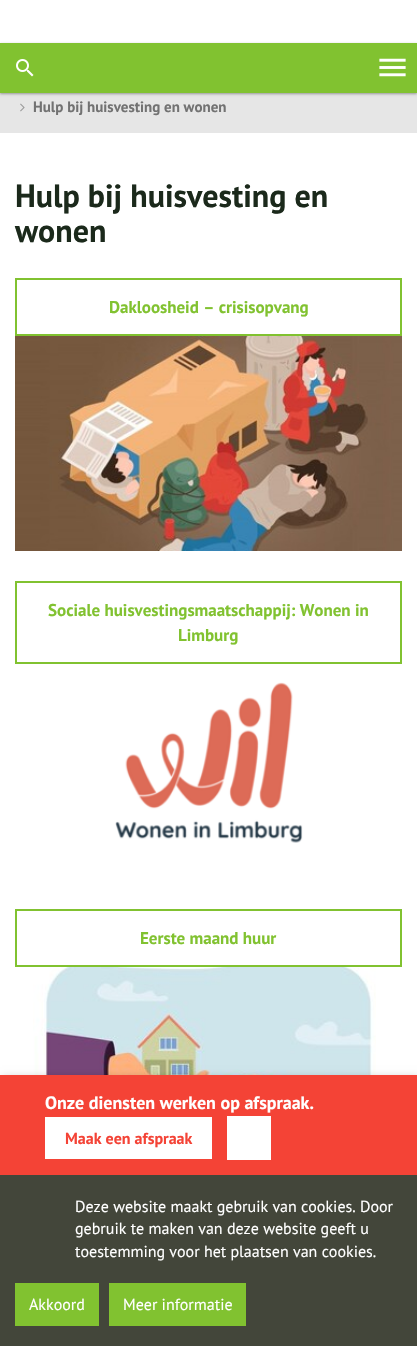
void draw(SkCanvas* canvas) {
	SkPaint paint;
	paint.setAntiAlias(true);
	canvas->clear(0xffffffff);
	paint.setColor(0xffe6e6e6);
	canvas->drawRect(SkRect::MakeXYWH(0, 93, 417, 40), paint);
	paint.setColor(0x3d000000);
	paint.setMaskFilter(SkMaskFilter::MakeBlur(kNormal_SkBlurStyle, 1));
	canvas->drawRect(SkRect::MakeXYWH(0, 44, 417, 50), paint);
	paint.setMaskFilter(nullptr);
	paint.setColor(0x1f000000);
	paint.setMaskFilter(SkMaskFilter::MakeBlur(kNormal_SkBlurStyle, 1.5));
	canvas->drawRect(SkRect::MakeXYWH(0, 44, 417, 50), paint);
	paint.setMaskFilter(nullptr);
	paint.setColor(0xff81c230);
	canvas->drawRect(SkRect::MakeXYWH(0, 43, 417, 50), paint);
	canvas->drawImageRect(SkImages::DeferredFromEncodedData(SkData::MakeFromFileName("img1.png")), SkRect::MakeXYWH(16, 59, 18, 18), SkSamplingOptions());
	canvas->drawImageRect(SkImages::DeferredFromEncodedData(SkData::MakeFromFileName("img2.png")), SkRect::MakeXYWH(379, 58, 27, 19), SkSamplingOptions());
	canvas->drawImageRect(SkImages::DeferredFromEncodedData(SkData::MakeFromFileName("img3.png")), SkRect::MakeXYWH(20, 103, 5, 9), SkSamplingOptions());
	SkFont f1(fontMgr->matchFamilyStyle("PT Sans", SkFontStyle::Bold()), 15);
	f1.setSubpixel(true);
	paint.setColor(0xff727272);
	canvas->drawString("Hulp bij huisvesting en wonen", 33, 112, f1, paint);
	SkFont f2(fontMgr->matchFamilyStyle("PT Sans", SkFontStyle::Bold()), 32);
	f2.setSubpixel(true);
	paint.setColor(0xff1b291b);
	canvas->drawString("Hulp bij huisvesting en", 15, 207, f2, paint);
	canvas->drawString("wonen", 15, 242, f2, paint);
	paint.setStroke(true);
	paint.setStrokeWidth(2);
	paint.setColor(0xff81c230);
	canvas->drawRect(SkRect::MakeXYWH(16, 279, 385, 56), paint);
	SkFont f3(fontMgr->matchFamilyStyle("PT Sans", SkFontStyle::Bold()), 17);
	f3.setSubpixel(true);
	paint.setStroke(false);
	canvas->drawString("Dakloosheid – crisisopvang", 109, 313, f3, paint);
	canvas->drawImageRect(SkImages::DeferredFromEncodedData(SkData::MakeFromFileName("img4.png")), SkRect::MakeXYWH(15, 336, 387, 215), SkSamplingOptions());
	paint.setStroke(true);
	canvas->drawRect(SkRect::MakeXYWH(16, 582, 385, 81), paint);
	paint.setStroke(false);
	canvas->drawString("Sociale huisvestingsmaatschappij: Wonen in", 48, 616, f3, paint);
	canvas->drawString("Limburg", 178, 641, f3, paint);
	canvas->drawImageRect(SkImages::DeferredFromEncodedData(SkData::MakeFromFileName("img5.png")), SkRect::MakeXYWH(115, 682, 188, 161), SkSamplingOptions());
	paint.setStroke(true);
	canvas->drawRect(SkRect::MakeXYWH(16, 910, 385, 56), paint);
	paint.setStroke(false);
	canvas->drawString("Eerste maand huur", 140, 944, f3, paint);
	canvas->drawImageRect(SkImages::DeferredFromEncodedData(SkData::MakeFromFileName("img6.png")), SkRect::MakeXYWH(33, 967, 343, 108), SkSamplingOptions());
	paint.setColor(0x33000000);
	paint.setMaskFilter(SkMaskFilter::MakeBlur(kNormal_SkBlurStyle, 4));
	canvas->drawRect(SkRect::MakeXYWH(2, 1077, 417, 100), paint);
	paint.setMaskFilter(nullptr);
	paint.setColor(0xfff44336);
	canvas->drawRect(SkRect::MakeXYWH(0, 1075, 417, 100), paint);
	SkFont f4(fontMgr->matchFamilyStyle("PT Sans", SkFontStyle::Bold()), 18);
	f4.setSubpixel(true);
	paint.setColor(0xffffffff);
	canvas->drawString("Onze diensten werken op afspraak.", 45, 1109, f4, paint);
	canvas->drawRect(SkRect::MakeXYWH(45, 1117, 167, 42), paint);
	SkFont f5(fontMgr->matchFamilyStyle("PT Sans", SkFontStyle::Bold()), 16);
	f5.setSubpixel(true);
	paint.setColor(0xfff44336);
	canvas->drawString("Maak een afspraak", 65, 1144, f5, paint);
	paint.setColor(0xffffffff);
	canvas->drawRect(SkRect::MakeXYWH(227, 1116, 44, 44), paint);
	paint.setColor(0xff43463a);
	canvas->drawRect(SkRect::MakeXYWH(0, 1175, 417, 171), paint);
	SkFont f6(fontMgr->matchFamilyStyle("PT Sans", SkFontStyle::Normal()), 16);
	f6.setSubpixel(true);
	paint.setColor(0xffffffff);
	canvas->drawString("Deze website maakt gebruik van cookies. Door", 75, 1212, f6, paint);
	canvas->drawString("gebruik te maken van deze website geeft u", 75, 1234, f6, paint);
	canvas->drawString("toestemming voor het plaatsen van cookies.", 75, 1257, f6, paint);
	paint.setColor(0xff81c230);
	canvas->drawRect(SkRect::MakeXYWH(15, 1283, 84, 43), paint);
	paint.setColor(0xffffffff);
	canvas->drawString("Akkoord", 29, 1310, f6, paint);
	paint.setColor(0xff81c230);
	canvas->drawRect(SkRect::MakeXYWH(109, 1283, 137, 43), paint);
	paint.setColor(0xffffffff);
	canvas->drawString("Meer informatie", 123, 1310, f6, paint);
}
